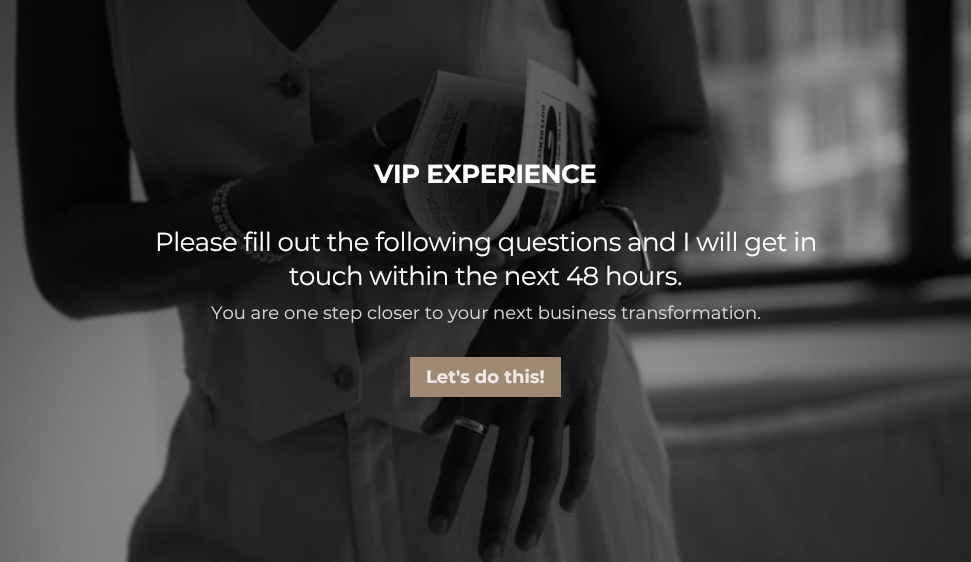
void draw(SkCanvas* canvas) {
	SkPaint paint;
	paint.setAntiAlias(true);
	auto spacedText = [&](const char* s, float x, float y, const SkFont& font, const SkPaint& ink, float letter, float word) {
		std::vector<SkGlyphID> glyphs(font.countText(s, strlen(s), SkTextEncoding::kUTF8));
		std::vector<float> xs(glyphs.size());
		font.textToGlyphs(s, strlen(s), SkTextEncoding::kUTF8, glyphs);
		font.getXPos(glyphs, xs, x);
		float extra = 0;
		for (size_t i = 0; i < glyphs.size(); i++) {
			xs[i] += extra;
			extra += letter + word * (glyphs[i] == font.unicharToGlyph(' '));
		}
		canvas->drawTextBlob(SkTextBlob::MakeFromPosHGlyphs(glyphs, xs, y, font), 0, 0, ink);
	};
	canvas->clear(0xffffffff);
	canvas->drawImageRect(SkImages::DeferredFromEncodedData(SkData::MakeFromFileName("img1.png")), SkRect::MakeXYWH(0, 0, 971, 562), SkSamplingOptions());
	SkFont f1(fontMgr->matchFamilyStyle("Montserrat", SkFontStyle(100, SkFontStyle::kNormal_Width, SkFontStyle::kUpright_Slant)), 26);
	f1.setSubpixel(true);
	paint.setColor(0xffffffff);
	spacedText("VIP EXPERIENCE", 374, 183, f1, paint, -0.5, 0);
	SkFont f2(fontMgr->matchFamilyStyle("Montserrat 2", SkFontStyle(100, SkFontStyle::kNormal_Width, SkFontStyle::kUpright_Slant)), 26);
	f2.setSubpixel(true);
	spacedText("Please fill out the following questions and I will get in", 155, 251, f2, paint, -0.5, 0);
	spacedText("touch within the next 48 hours.", 289, 285, f2, paint, -0.5, 0);
	SkFont f3(fontMgr->matchFamilyStyle("Montserrat 2", SkFontStyle(100, SkFontStyle::kNormal_Width, SkFontStyle::kUpright_Slant)), 18);
	f3.setSubpixel(true);
	paint.setColor(0xffd8d8d8);
	canvas->drawString("You are one step closer to your next business transformation.", 211, 319, f3, paint);
	paint.setColor(0xff9e8a73);
	canvas->drawRect(SkRect::MakeXYWH(410, 357, 151, 40), paint);
	SkFont f4(fontMgr->matchFamilyStyle("Montserrat", SkFontStyle(100, SkFontStyle::kNormal_Width, SkFontStyle::kUpright_Slant)), 18);
	f4.setSubpixel(true);
	paint.setColor(0xffeee9e7);
	canvas->drawString("Let's do this!", 426, 383, f4, paint);
}
